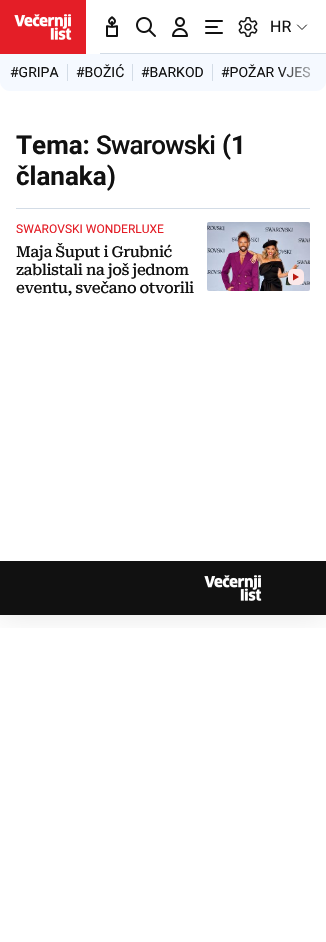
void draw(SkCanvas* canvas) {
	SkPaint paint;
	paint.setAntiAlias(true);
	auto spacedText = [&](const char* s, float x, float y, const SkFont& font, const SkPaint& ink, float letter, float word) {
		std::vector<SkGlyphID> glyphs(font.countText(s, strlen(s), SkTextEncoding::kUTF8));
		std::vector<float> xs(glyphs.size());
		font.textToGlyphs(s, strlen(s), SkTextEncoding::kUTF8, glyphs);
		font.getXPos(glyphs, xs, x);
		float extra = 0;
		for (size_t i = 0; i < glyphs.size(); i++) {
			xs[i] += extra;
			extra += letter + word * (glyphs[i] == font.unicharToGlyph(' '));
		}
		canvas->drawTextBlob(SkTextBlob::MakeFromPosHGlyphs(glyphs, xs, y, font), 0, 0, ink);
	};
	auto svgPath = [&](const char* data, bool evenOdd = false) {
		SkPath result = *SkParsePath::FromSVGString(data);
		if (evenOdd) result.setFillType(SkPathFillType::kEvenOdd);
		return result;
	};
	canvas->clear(0xffffffff);
	canvas->save();
	canvas->clipRect(SkRect::MakeXYWH(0, 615, 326, 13));
	paint.setColor(0x1a000000);
	paint.setMaskFilter(SkMaskFilter::MakeBlur(kNormal_SkBlurStyle, 15));
	canvas->drawRect(SkRect::MakeXYWH(0, 0, 326, 615), paint);
	paint.setMaskFilter(nullptr);
	canvas->restore();
	paint.setColor(0xffe41e27);
	canvas->drawRect(SkRect::MakeXYWH(0, 0, 86, 54), paint);
	canvas->drawImageRect(SkImages::DeferredFromEncodedData(SkData::MakeFromFileName("img1.png")), SkRect::MakeXYWH(14, 14, 58, 26), SkSamplingOptions());
	canvas->drawImageRect(SkImages::DeferredFromEncodedData(SkData::MakeFromFileName("img2.png")), SkRect::MakeXYWH(106, 16, 12, 21), SkSamplingOptions());
	canvas->drawImageRect(SkImages::DeferredFromEncodedData(SkData::MakeFromFileName("img3.png")), SkRect::MakeXYWH(136, 17, 20, 20), SkSamplingOptions());
	canvas->drawImageRect(SkImages::DeferredFromEncodedData(SkData::MakeFromFileName("img4.png")), SkRect::MakeXYWH(172, 17, 16, 20), SkSamplingOptions());
	canvas->drawImageRect(SkImages::DeferredFromEncodedData(SkData::MakeFromFileName("img5.png")), SkRect::MakeXYWH(205, 20, 18, 14), SkSamplingOptions());
	canvas->drawImageRect(SkImages::DeferredFromEncodedData(SkData::MakeFromFileName("img6.png")), SkRect::MakeXYWH(238, 17, 20, 20), SkSamplingOptions());
	SkFont f1(fontMgr->matchFamilyStyle("Roboto", SkFontStyle::Normal()), 16);
	f1.setSubpixel(true);
	paint.setColor(0xff111111);
	canvas->drawString("HR", 270, 32, f1, paint);
	paint.setStroke(true);
	paint.setStrokeWidth(1);
	paint.setStrokeCap(SkPaint::kRound_Cap);
	paint.setStrokeJoin(SkPaint::kRound_Join);
	canvas->drawPath(svgPath("M306.5 25L302 29.5L297.5 25"), paint);
	paint.setStroke(false);
	paint.setColor(0xffd3dce6);
	canvas->drawRect(SkRect::MakeXYWH(100, 53, 226, 1), paint);
	paint.setColor(0xfff5f9ff);
	canvas->drawPath(svgPath("M0 54H326V81C326 86.5 321.5 91 316 91H10C4.5 91 0 86.5 0 81Z"), paint);
	SkFont f2(fontMgr->matchFamilyStyle("Roboto", SkFontStyle::Normal()), 14);
	f2.setSubpixel(true);
	paint.setColor(0xff111111);
	canvas->drawString("#GRIPA", 10, 77, f2, paint);
	paint.setColor(0xffd3dce6);
	canvas->drawRect(SkRect::MakeXYWH(67, 64, 1, 17), paint);
	paint.setColor(0xff111111);
	canvas->drawString("#BOŽIĆ", 76, 77, f2, paint);
	paint.setColor(0xffd3dce6);
	canvas->drawRect(SkRect::MakeXYWH(132, 64, 1, 17), paint);
	paint.setColor(0xff111111);
	canvas->drawString("#BARKOD", 141, 77, f2, paint);
	paint.setColor(0xffd3dce6);
	canvas->drawRect(SkRect::MakeXYWH(212, 64, 1, 17), paint);
	paint.setColor(0xff111111);
	canvas->drawString("#POŽAR VJES", 221, 77, f2, paint);
	{
		const SkColor colors[] = {0x00f5f9ff, 0xfff5f9ff};
		const float stops[] = {0, 1};
		const SkPoint ends[] = {{278, 73}, {326, 73}};
		paint.setShader(SkGradientShader::MakeLinear(ends, colors, stops, 2, SkTileMode::kClamp));
		paint.setAlpha(255);
	}
	canvas->drawRect(SkRect::MakeXYWH(279, 66, 31, 12), paint);
	SkFont f3(fontMgr->matchFamilyStyle("Roboto", SkFontStyle::Bold()), 26);
	f3.setSubpixel(true);
	paint.setShader(nullptr);
	paint.setColor(0xff111111);
	canvas->drawString("Tema:", 16, 154, f3, paint);
	SkFont f4(fontMgr->matchFamilyStyle("Roboto", SkFontStyle(500, SkFontStyle::kNormal_Width, SkFontStyle::kUpright_Slant)), 26);
	f4.setSubpixel(true);
	spacedText("Swarowski", 96, 154, f4, paint, -0.75, 0);
	canvas->drawString("(1", 222, 154, f3, paint);
	canvas->drawString("članaka)", 16, 185, f3, paint);
	paint.setColor(0xffd3dce6);
	canvas->drawRect(SkRect::MakeXYWH(16, 208, 294, 1), paint);
	SkFont f5(fontMgr->matchFamilyStyle("Roboto", SkFontStyle::Normal()), 12);
	f5.setSubpixel(true);
	paint.setColor(0xffe41e27);
	canvas->drawString("SWAROVSKI WONDERLUXE", 16, 233, f5, paint);
	canvas->save();
	canvas->clipRect(SkRect::MakeXYWH(16, 243, 181, 54));
	SkFont f6(fontMgr->matchFamilyStyle("Roboto Serif", SkFontStyle(500, SkFontStyle::kNormal_Width, SkFontStyle::kUpright_Slant)), 15);
	f6.setSubpixel(true);
	paint.setColor(0xff111111);
	spacedText("Maja Šuput i Grubnić", 16, 257, f6, paint, -0.45, 0);
	canvas->restore();
	spacedText("zablistali na još jednom", 16, 275, f6, paint, -0.45, 0);
	spacedText("eventu, svečano otvorili", 16, 293, f6, paint, -0.45, 0);
	canvas->drawImageRect(SkImages::DeferredFromEncodedData(SkData::MakeFromFileName("img7.png")), SkRect::MakeXYWH(207, 222, 103, 69), SkSamplingOptions());
	paint.setColor(0xfffce8e9);
	canvas->drawRoundRect(SkRect::MakeXYWH(288, 269, 16, 16), 5, 5, paint);
	paint.setColor(0xffba1912);
	canvas->drawPath(svgPath("M293 273.5L299 277L293 280.5Z", true), paint);
	paint.setColor(0xff111111);
	canvas->drawRect(SkRect::MakeXYWH(0, 561, 326, 54), paint);
	canvas->drawImageRect(SkImages::DeferredFromEncodedData(SkData::MakeFromFileName("img8.png")), SkRect::MakeXYWH(204, 575, 58, 26), SkSamplingOptions());
}
